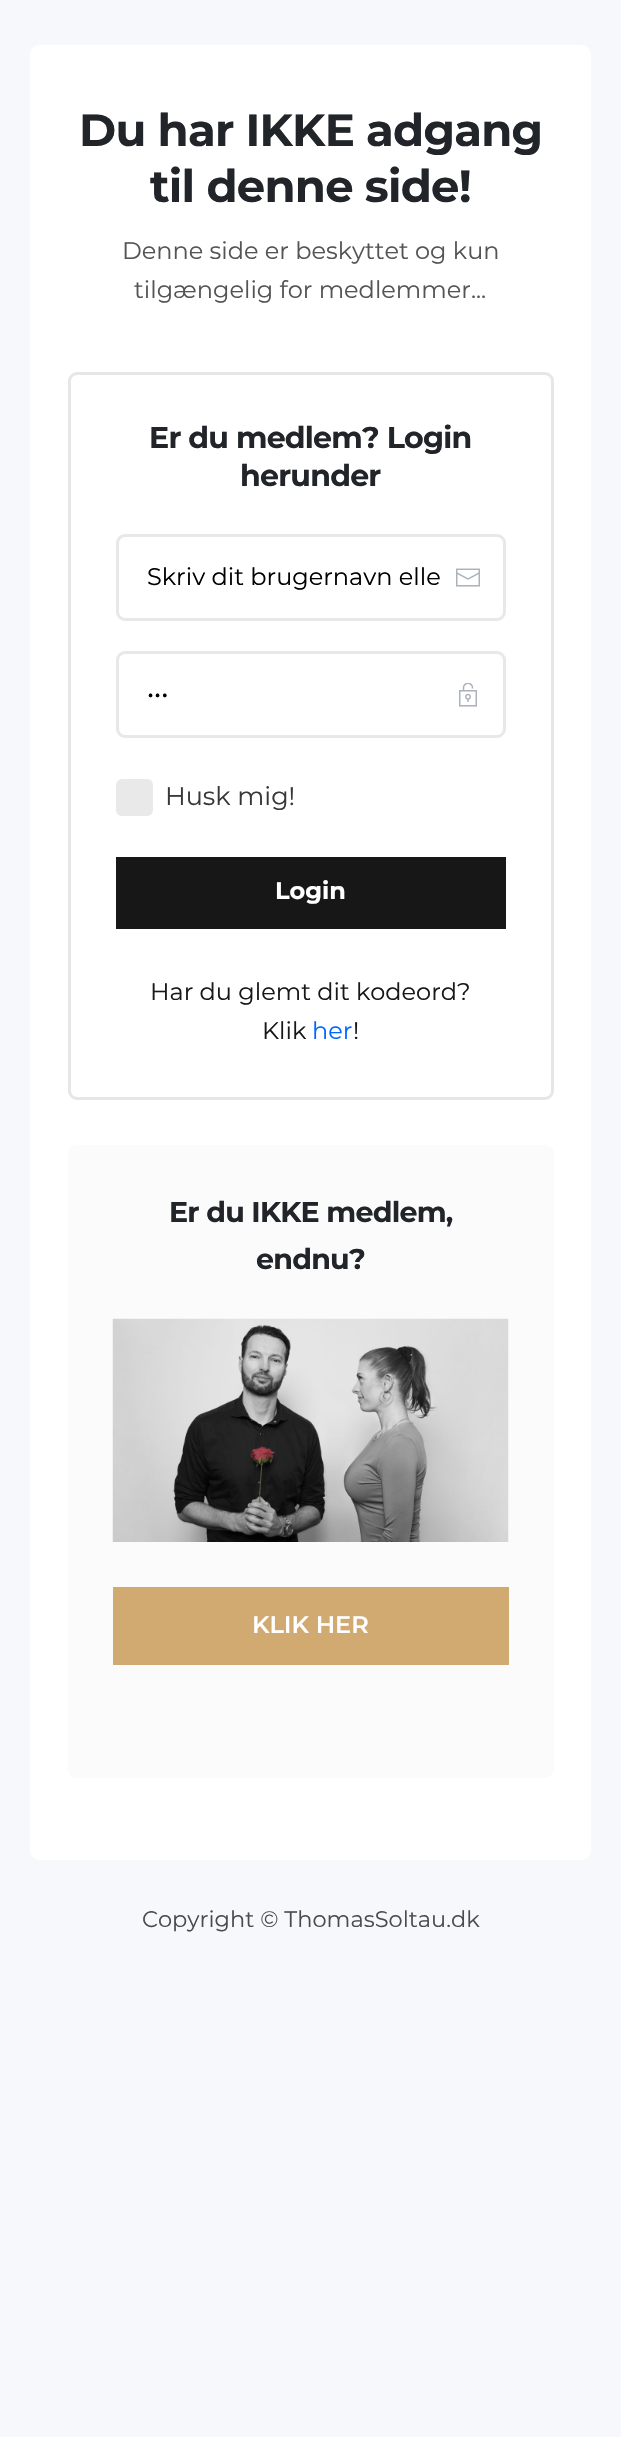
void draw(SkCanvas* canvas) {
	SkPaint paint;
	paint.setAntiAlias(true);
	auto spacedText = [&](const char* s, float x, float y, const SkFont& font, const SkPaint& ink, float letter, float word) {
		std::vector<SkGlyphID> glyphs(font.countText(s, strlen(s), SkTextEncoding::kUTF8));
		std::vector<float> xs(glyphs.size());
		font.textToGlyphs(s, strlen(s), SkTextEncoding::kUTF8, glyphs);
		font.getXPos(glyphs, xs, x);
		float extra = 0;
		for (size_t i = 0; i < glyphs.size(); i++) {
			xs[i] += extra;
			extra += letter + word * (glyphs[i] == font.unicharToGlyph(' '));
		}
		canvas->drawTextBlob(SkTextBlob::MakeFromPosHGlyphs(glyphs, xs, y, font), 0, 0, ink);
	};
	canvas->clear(0xfff7f8fc);
	paint.setColor(0xffffffff);
	canvas->drawRoundRect(SkRect::MakeXYWH(30, 45, 561, 1815), 9, 9, paint);
	SkFont f1(fontMgr->matchFamilyStyle("Montserrat", SkFontStyle::Bold()), 45);
	f1.setSubpixel(true);
	paint.setColor(0xff212529);
	spacedText("Du har IKKE adgang", 79, 146, f1, paint, -0.75, 0);
	spacedText("til denne side!", 150, 202, f1, paint, -0.75, 0);
	SkFont f2(fontMgr->matchFamilyStyle("Montserrat", SkFontStyle::Normal()), 24);
	f2.setSubpixel(true);
	paint.setColor(0xff545454);
	canvas->drawString("Denne side er beskyttet og kun", 122, 259, f2, paint);
	canvas->drawString("tilgængelig for medlemmer...", 134, 298, f2, paint);
	paint.setStroke(true);
	paint.setStrokeWidth(3);
	paint.setColor(0xffe6e6e6);
	canvas->drawRoundRect(SkRect::MakeXYWH(69.5, 373.5, 483, 725), 7.5, 7.5, paint);
	SkFont f3(fontMgr->matchFamilyStyle("Montserrat", SkFontStyle::Bold()), 30);
	f3.setSubpixel(true);
	paint.setStroke(false);
	paint.setColor(0xff212529);
	spacedText("Er du medlem? Login", 149, 448, f3, paint, -0.75, 0);
	spacedText("herunder", 240, 486, f3, paint, -0.75, 0);
	paint.setStroke(true);
	paint.setColor(0xffe8e8e8);
	canvas->drawRoundRect(SkRect::MakeXYWH(117.5, 535.5, 387, 84), 7.5, 7.5, paint);
	paint.setStroke(false);
	paint.setColor(0xff000000);
	canvas->drawString("Skriv dit brugernavn elle", 147, 585, f2, paint);
	canvas->drawImageRect(SkImages::DeferredFromEncodedData(SkData::MakeFromFileName("img1.png")), SkRect::MakeXYWH(456, 568, 24, 19), SkSamplingOptions());
	paint.setStroke(true);
	paint.setColor(0xffe8e8e8);
	canvas->drawRoundRect(SkRect::MakeXYWH(117.5, 652.5, 387, 84), 7.5, 7.5, paint);
	paint.setStroke(false);
	paint.setColor(0xff000000);
	canvas->drawString("•••", 147, 702, f2, paint);
	canvas->drawImageRect(SkImages::DeferredFromEncodedData(SkData::MakeFromFileName("img2.png")), SkRect::MakeXYWH(459, 683, 18, 24), SkSamplingOptions());
	paint.setColor(0xffe9e9e9);
	canvas->drawRoundRect(SkRect::MakeXYWH(116, 779, 37, 37), 6, 6, paint);
	SkFont f4(fontMgr->matchFamilyStyle("Montserrat", SkFontStyle::Normal()), 25.5);
	f4.setSubpixel(true);
	paint.setColor(0xff383838);
	canvas->drawString("Husk mig!", 165, 805, f4, paint);
	paint.setColor(0xff171717);
	canvas->drawRect(SkRect::MakeXYWH(116, 857, 390, 72), paint);
	SkFont f5(fontMgr->matchFamilyStyle("Montserrat", SkFontStyle::Bold()), 24);
	f5.setSubpixel(true);
	paint.setColor(0xffffffff);
	canvas->drawString("Login", 275, 899, f5, paint);
	paint.setColor(0xff181818);
	canvas->drawString("Har du glemt dit kodeord?", 150, 1000, f2, paint);
	canvas->drawString("Klik", 262, 1039, f2, paint);
	paint.setColor(0xff0067ff);
	canvas->drawString("her", 312, 1039, f2, paint);
	paint.setColor(0xff181818);
	canvas->drawString("!", 353, 1039, f2, paint);
	paint.setColor(0xfffbfbfc);
	canvas->drawRoundRect(SkRect::MakeXYWH(68, 1145, 486, 633), 9, 9, paint);
	SkFont f6(fontMgr->matchFamilyStyle("Montserrat", SkFontStyle::Bold()), 28.5);
	f6.setSubpixel(true);
	paint.setColor(0xff212529);
	spacedText("Er du IKKE medlem,", 169, 1222, f6, paint, -0.75, 0);
	spacedText("endnu?", 256, 1269, f6, paint, -0.75, 0);
	canvas->drawImageRect(SkImages::DeferredFromEncodedData(SkData::MakeFromFileName("img3.png")), SkRect::MakeXYWH(112, 1318, 397, 224), SkSamplingOptions());
	paint.setColor(0xffd1aa71);
	canvas->drawRect(SkRect::MakeXYWH(113, 1587, 396, 78), paint);
	SkFont f7(fontMgr->matchFamilyStyle("Montserrat", SkFontStyle(600, SkFontStyle::kNormal_Width, SkFontStyle::kUpright_Slant)), 24);
	f7.setSubpixel(true);
	paint.setColor(0xffffffff);
	canvas->drawString("KLIK HER", 252, 1633, f7, paint);
	SkFont f8(fontMgr->matchFamilyStyle("Montserrat", SkFontStyle::Normal()), 22.5);
	f8.setSubpixel(true);
	paint.setColor(0xff4b4b4c);
	canvas->drawString("Copyright © ThomasSoltau.dk", 142, 1927, f8, paint);
}
